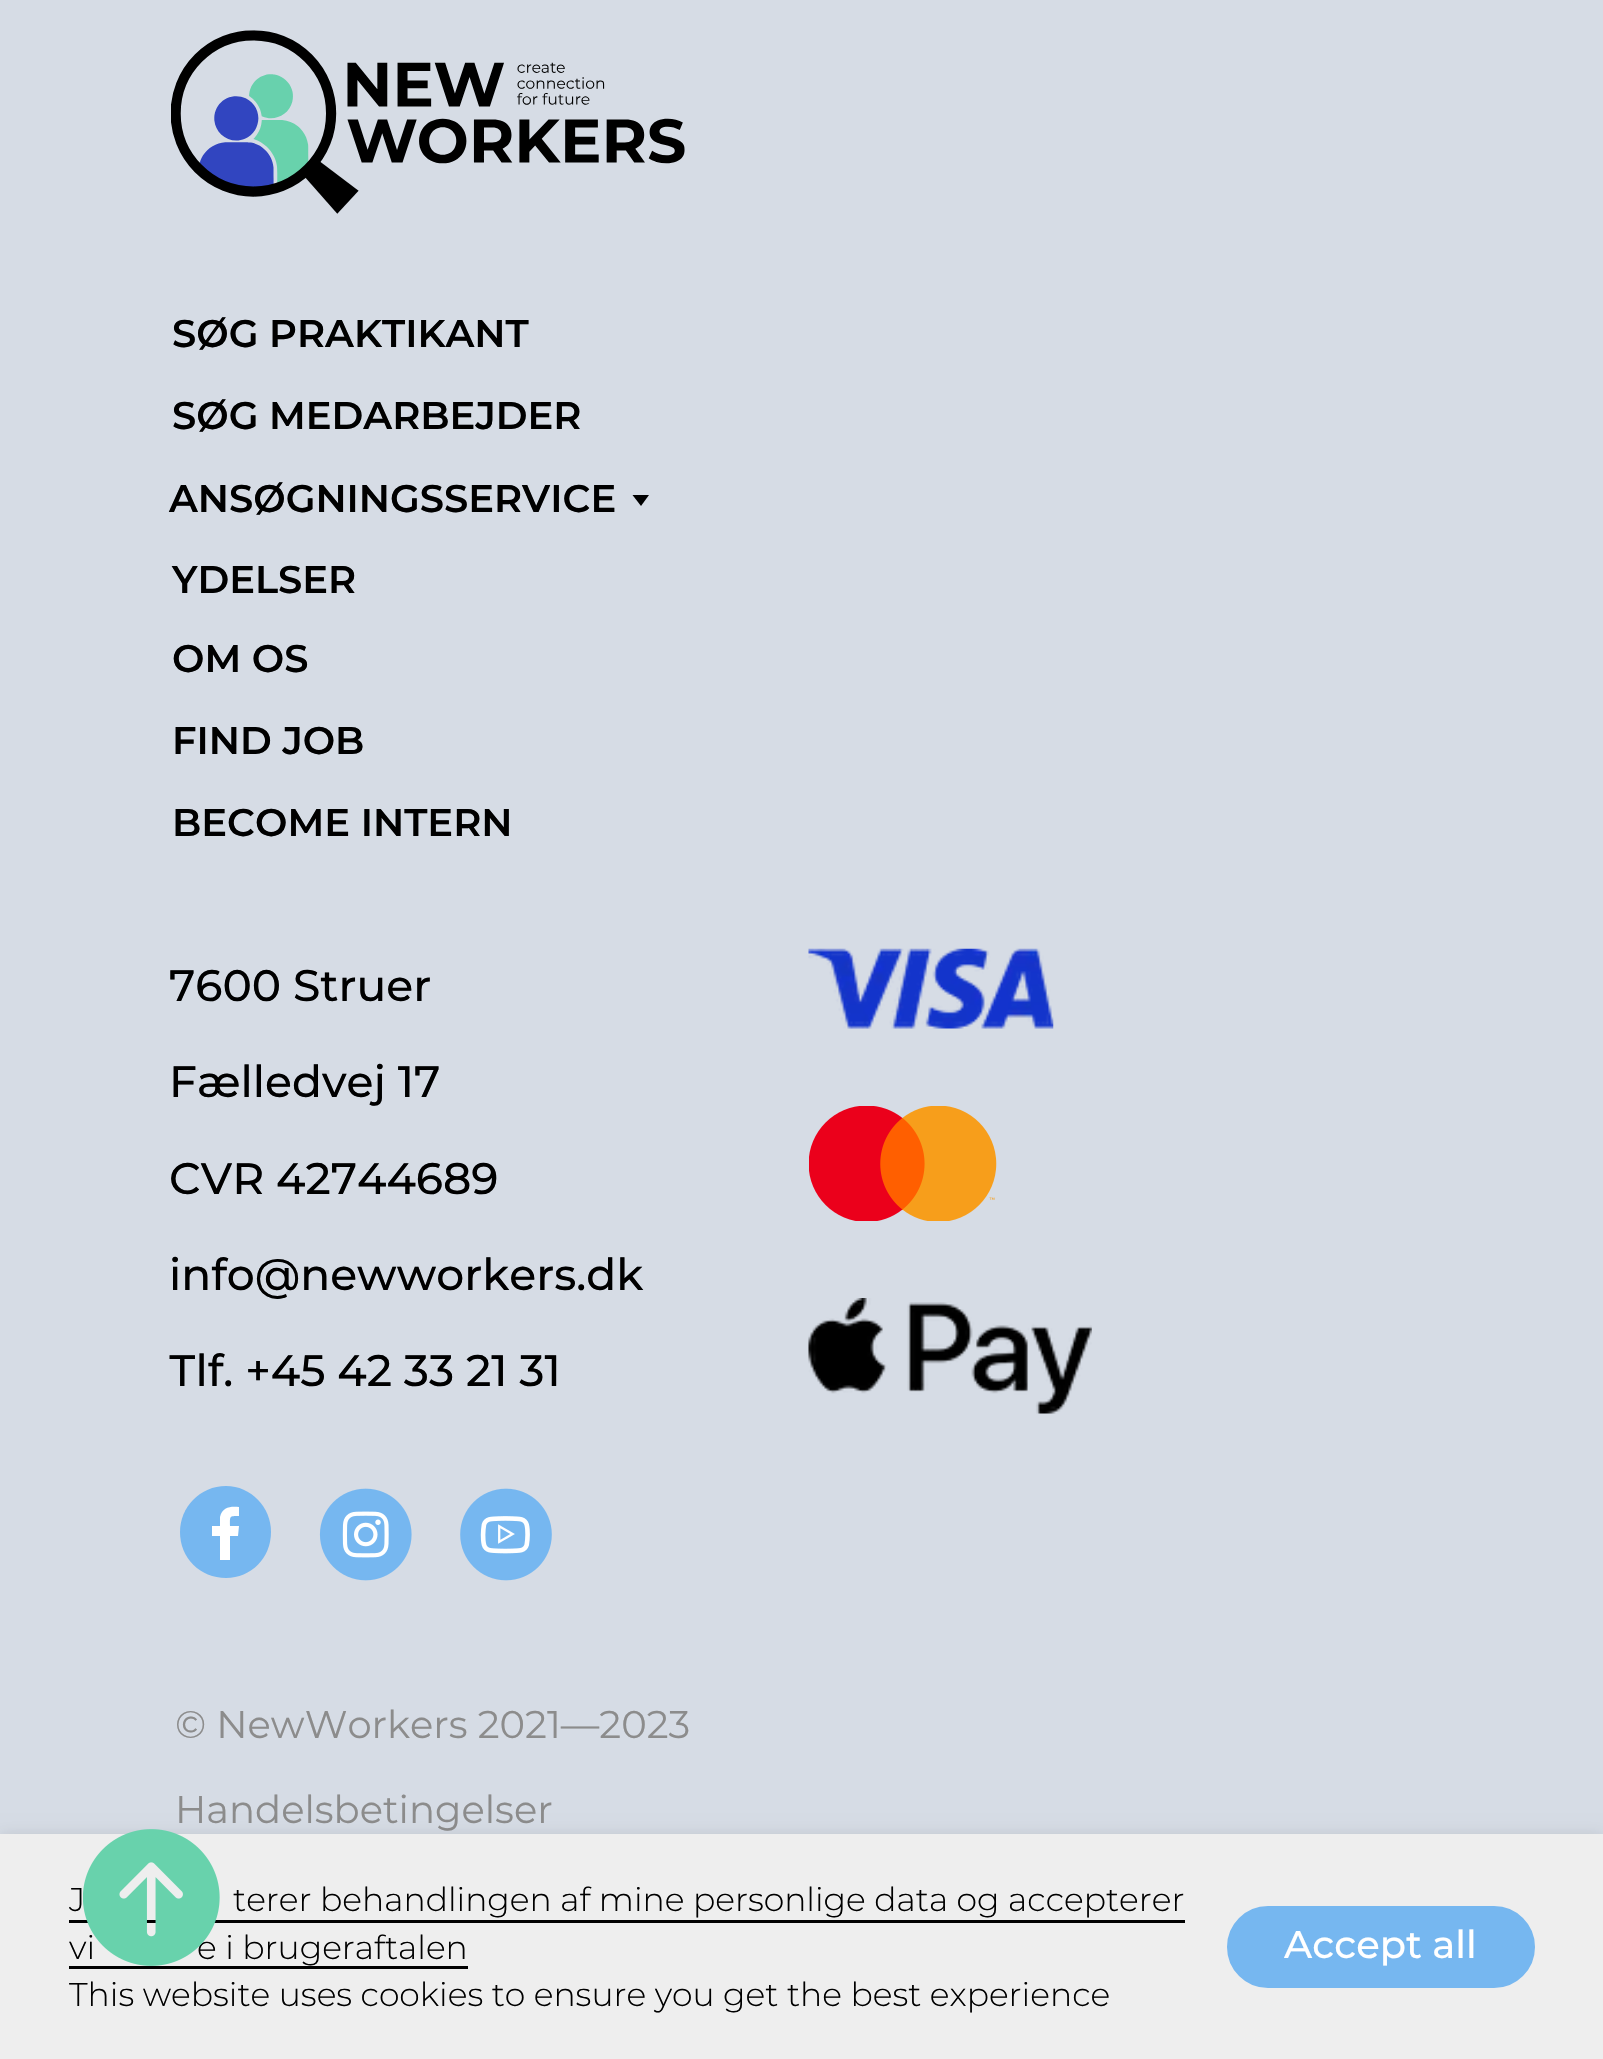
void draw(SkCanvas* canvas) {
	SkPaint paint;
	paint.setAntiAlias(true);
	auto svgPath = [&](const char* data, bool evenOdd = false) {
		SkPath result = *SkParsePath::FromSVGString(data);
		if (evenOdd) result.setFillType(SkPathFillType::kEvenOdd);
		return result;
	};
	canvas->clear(0xffd6dce5);
	canvas->drawImageRect(SkImages::DeferredFromEncodedData(SkData::MakeFromFileName("img1.png")), SkRect::MakeXYWH(171, 30, 514, 184), SkSamplingOptions());
	SkFont f1(fontMgr->matchFamilyStyle("Montserrat", SkFontStyle(600, SkFontStyle::kNormal_Width, SkFontStyle::kUpright_Slant)), 38.5);
	f1.setSubpixel(true);
	paint.setColor(0xff000000);
	canvas->drawString("SØG PRAKTIKANT", 172, 347, f1, paint);
	canvas->drawString("SØG MEDARBEJDER", 172, 429, f1, paint);
	canvas->drawString("ANSØGNINGSSERVICE", 169, 512, f1, paint);
	canvas->drawPath(svgPath("M632.5 495H649L641 506Z"), paint);
	canvas->drawString("YDELSER", 172, 593, f1, paint);
	canvas->drawString("OM OS", 172, 672, f1, paint);
	canvas->drawString("FIND JOB", 172, 754, f1, paint);
	canvas->drawString("BECOME INTERN", 172, 836, f1, paint);
	SkFont f2(fontMgr->matchFamilyStyle("Montserrat", SkFontStyle(500, SkFontStyle::kNormal_Width, SkFontStyle::kUpright_Slant)), 44);
	f2.setSubpixel(true);
	canvas->drawString("7600 Struer", 169, 1001, f2, paint);
	canvas->drawImageRect(SkImages::DeferredFromEncodedData(SkData::MakeFromFileName("img2.png")), SkRect::MakeXYWH(808, 948, 246, 81), SkSamplingOptions());
	canvas->drawString("Fælledvej 17", 169, 1097, f2, paint);
	canvas->drawString("CVR 42744689", 169, 1194, f2, paint);
	canvas->drawImageRect(SkImages::DeferredFromEncodedData(SkData::MakeFromFileName("img3.png")), SkRect::MakeXYWH(809, 1106, 188, 115), SkSamplingOptions());
	canvas->drawString("info@newworkers.dk", 169, 1290, f2, paint);
	canvas->drawString("Тlf. +45 42 33 21 31", 169, 1386, f2, paint);
	canvas->drawImageRect(SkImages::DeferredFromEncodedData(SkData::MakeFromFileName("img4.png")), SkRect::MakeXYWH(808, 1298, 284, 116), SkSamplingOptions());
	paint.setColor(0xff76b7f0);
	canvas->drawPath(svgPath("M226 1578C251 1578 271 1558 271 1532C271 1507 251 1486 226 1486C200 1486 180 1507 180 1532C180 1558 200 1578 226 1578Z"), paint);
	paint.setColor(0xffffffff);
	canvas->drawPath(svgPath("M230 1560V1536H238L239 1526H230C230 1516 229 1516 239 1516V1507C231 1506 222 1507 220 1517V1526H212V1536H220V1560Z"), paint);
	canvas->drawImageRect(SkImages::DeferredFromEncodedData(SkData::MakeFromFileName("img5.png")), SkRect::MakeXYWH(319, 1488, 93, 93), SkSamplingOptions());
	canvas->drawImageRect(SkImages::DeferredFromEncodedData(SkData::MakeFromFileName("img6.png")), SkRect::MakeXYWH(460, 1488, 92, 93), SkSamplingOptions());
	SkFont f3(fontMgr->matchFamilyStyle("Montserrat", SkFontStyle::Normal()), 38.5);
	f3.setSubpixel(true);
	paint.setColor(0xff8c8c8c);
	canvas->drawString("© NewWorkers 2021—2023", 175, 1738, f3, paint);
	canvas->drawString("Handelsbetingelser", 175, 1823, f3, paint);
	paint.setColor(0x1a000000);
	paint.setMaskFilter(SkMaskFilter::MakeBlur(kNormal_SkBlurStyle, 7));
	canvas->drawRect(SkRect::MakeXYWH(0, 1834, 1603, 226), paint);
	paint.setMaskFilter(nullptr);
	paint.setColor(0xffeeeeee);
	canvas->drawRect(SkRect::MakeXYWH(0, 1834, 1603, 225), paint);
	paint.setColor(0xff000000);
	canvas->drawRect(SkRect::MakeXYWH(69, 1920, 1116, 3), paint);
	SkFont f4(fontMgr->matchFamilyStyle("Montserrat", SkFontStyle(300, SkFontStyle::kNormal_Width, SkFontStyle::kUpright_Slant)), 33);
	f4.setSubpixel(true);
	canvas->drawString("vi", 69, 1959, f4, paint);
	canvas->drawString("e i brugeraftalen", 197, 1959, f4, paint);
	canvas->drawImageRect(SkImages::DeferredFromEncodedData(SkData::MakeFromFileName("img7.png")), SkRect::MakeXYWH(83, 1829, 137, 137), SkSamplingOptions());
	canvas->drawString("J", 69, 1911, f4, paint);
	canvas->drawString("terer behandlingen af mine personlige data og accepterer", 233, 1911, f4, paint);
	canvas->drawRect(SkRect::MakeXYWH(69, 1966, 399, 3), paint);
	canvas->drawString("This website uses cookies to ensure you get the best experience", 69, 2006, f4, paint);
	paint.setColor(0xff76b7f0);
	canvas->drawRoundRect(SkRect::MakeXYWH(1228.5, 1907.5, 305, 79), 39.5, 39.5, paint);
	paint.setStroke(true);
	paint.setStrokeWidth(3);
	canvas->drawRoundRect(SkRect::MakeXYWH(1228.5, 1907.5, 305, 79), 39.5, 39.5, paint);
	SkFont f5(fontMgr->matchFamilyStyle("Montserrat", SkFontStyle(500, SkFontStyle::kNormal_Width, SkFontStyle::kUpright_Slant)), 38.5);
	f5.setSubpixel(true);
	paint.setStroke(false);
	paint.setColor(0xffffffff);
	canvas->drawString("Accept all", 1284, 1958, f5, paint);
}
